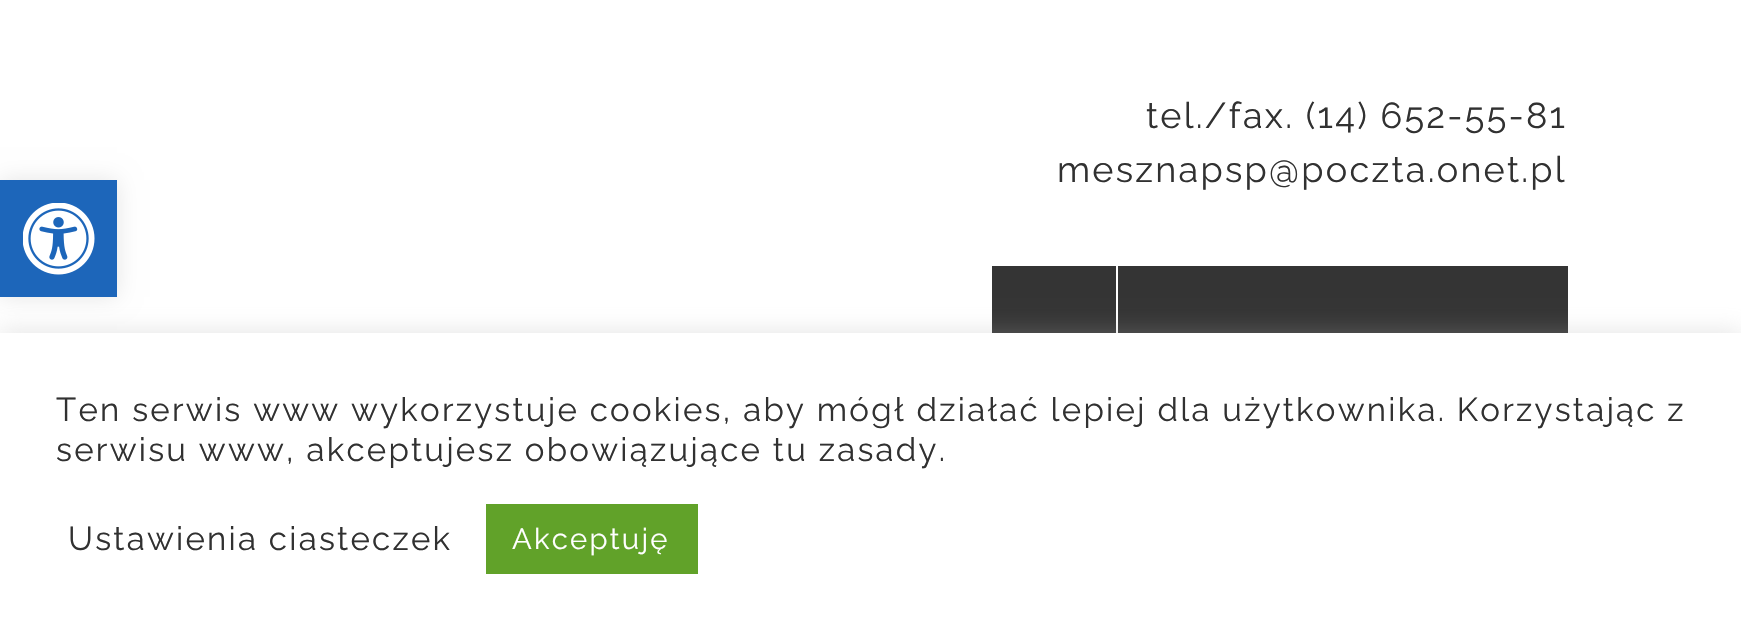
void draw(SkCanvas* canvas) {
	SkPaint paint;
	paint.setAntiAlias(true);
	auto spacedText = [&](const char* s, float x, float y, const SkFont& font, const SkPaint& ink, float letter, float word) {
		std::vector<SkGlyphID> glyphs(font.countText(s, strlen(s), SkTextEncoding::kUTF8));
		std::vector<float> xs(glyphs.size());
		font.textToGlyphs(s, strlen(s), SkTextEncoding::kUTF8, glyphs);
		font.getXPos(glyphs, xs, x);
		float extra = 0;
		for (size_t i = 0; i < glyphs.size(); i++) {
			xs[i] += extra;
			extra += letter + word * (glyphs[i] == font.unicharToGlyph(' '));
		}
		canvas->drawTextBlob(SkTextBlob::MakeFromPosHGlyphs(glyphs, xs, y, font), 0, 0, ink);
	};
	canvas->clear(0xffffffff);
	SkFont f1(fontMgr->matchFamilyStyle("Raleway", SkFontStyle::Normal()), 36);
	f1.setSubpixel(true);
	paint.setColor(0xff313131);
	spacedText("tel./fax. (14) 652-55-81", 1146, 128, f1, paint, 2.25, 0);
	spacedText("mesznapsp@poczta.onet.pl", 1057, 182, f1, paint, 2.25, 0);
	paint.setColor(0xff343434);
	canvas->drawRect(SkRect::MakeXYWH(992, 266, 124, 67), paint);
	canvas->drawRect(SkRect::MakeXYWH(1118, 266, 450, 67), paint);
	paint.setColor(0x4dacabab);
	paint.setMaskFilter(SkMaskFilter::MakeBlur(kNormal_SkBlurStyle, 11));
	canvas->drawRect(SkRect::MakeXYWH(0, 331, 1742, 308), paint);
	paint.setMaskFilter(nullptr);
	paint.setColor(0xffffffff);
	canvas->drawRect(SkRect::MakeXYWH(0, 333, 1741, 307), paint);
	SkFont f2(fontMgr->matchFamilyStyle("Raleway", SkFontStyle::Normal()), 33);
	f2.setSubpixel(true);
	paint.setColor(0xff313131);
	spacedText("Ten serwis www wykorzystuje cookies, aby mógł działać lepiej dla użytkownika. Korzystając z", 56, 421, f2, paint, 2.25, 0);
	spacedText("serwisu www, akceptujesz obowiązujące tu zasady.", 56, 461, f2, paint, 2.25, 0);
	spacedText("Ustawienia ciasteczek", 68, 550, f2, paint, 2.25, 0);
	paint.setColor(0xff61a229);
	canvas->drawRect(SkRect::MakeXYWH(486, 504, 212, 70), paint);
	SkFont f3(fontMgr->matchFamilyStyle("Raleway", SkFontStyle::Normal()), 29.25);
	f3.setSubpixel(true);
	paint.setColor(0xffffffff);
	spacedText("Akceptuję", 512, 549, f3, paint, 2.25, 0);
	paint.setColor(0x1a000000);
	paint.setMaskFilter(SkMaskFilter::MakeBlur(kNormal_SkBlurStyle, 11));
	canvas->drawRect(SkRect::MakeXYWH(0, 180, 117, 117), paint);
	paint.setMaskFilter(nullptr);
	paint.setColor(0xff1d66ba);
	canvas->drawRect(SkRect::MakeXYWH(0, 180, 117, 117), paint);
	canvas->drawImageRect(SkImages::DeferredFromEncodedData(SkData::MakeFromFileName("img1.png")), SkRect::MakeXYWH(23, 203, 72, 72), SkSamplingOptions());
}
